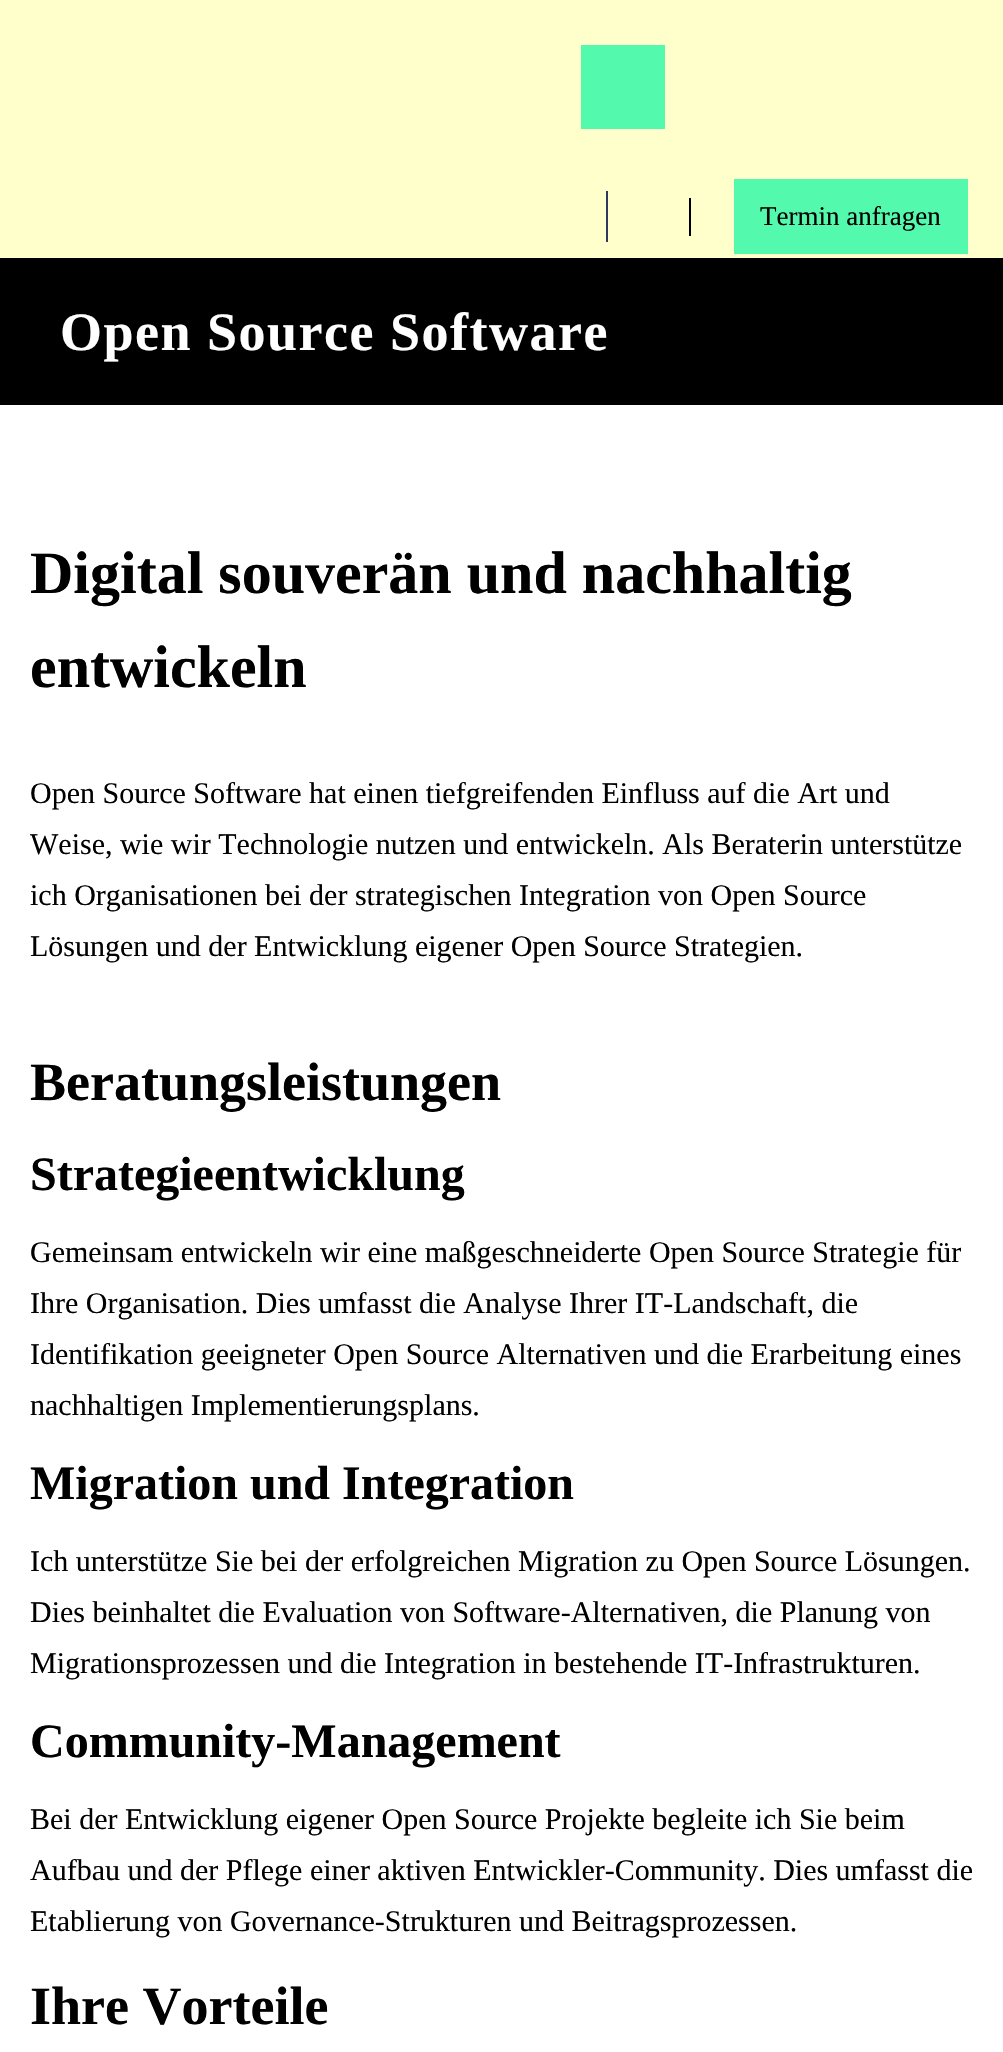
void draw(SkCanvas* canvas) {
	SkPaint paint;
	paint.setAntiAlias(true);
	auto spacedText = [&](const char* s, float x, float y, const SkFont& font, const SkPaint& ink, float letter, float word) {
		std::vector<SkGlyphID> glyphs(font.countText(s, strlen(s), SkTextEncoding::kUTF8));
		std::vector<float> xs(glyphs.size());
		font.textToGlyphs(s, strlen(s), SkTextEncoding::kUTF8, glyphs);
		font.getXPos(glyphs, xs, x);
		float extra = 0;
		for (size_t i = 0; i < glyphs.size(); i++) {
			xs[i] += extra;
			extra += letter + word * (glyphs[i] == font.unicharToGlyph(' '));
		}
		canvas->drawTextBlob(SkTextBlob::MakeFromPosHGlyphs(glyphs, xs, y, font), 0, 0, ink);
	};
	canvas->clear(0xffffffff);
	paint.setColor(0xffffffcc);
	canvas->drawRect(SkRect::MakeXYWH(0, 0, 1003, 258), paint);
	paint.setColor(0xff53f9ac);
	canvas->drawRect(SkRect::MakeXYWH(581, 45, 84, 84), paint);
	paint.setColor(0xff2d395f);
	canvas->drawRect(SkRect::MakeXYWH(606, 191, 2, 51), paint);
	paint.setColor(0xff000000);
	canvas->drawRect(SkRect::MakeXYWH(689, 198, 2, 38), paint);
	paint.setColor(0xff53f9ac);
	canvas->drawRect(SkRect::MakeXYWH(734, 179, 234, 75), paint);
	SkFont f1(fontMgr->matchFamilyStyle("Liberation Serif", SkFontStyle::Normal()), 27);
	f1.setSubpixel(true);
	paint.setColor(0xff000000);
	canvas->drawString("Termin anfragen", 760, 225, f1, paint);
	canvas->drawRect(SkRect::MakeXYWH(0, 258, 1003, 147), paint);
	SkFont f2(fontMgr->matchFamilyStyle("Liberation Serif", SkFontStyle::Bold()), 54);
	f2.setSubpixel(true);
	paint.setColor(0xffffffff);
	spacedText("Open Source Software", 60, 350, f2, paint, 1.5, 0);
	SkFont f3(fontMgr->matchFamilyStyle("Liberation Serif", SkFontStyle::Bold()), 60);
	f3.setSubpixel(true);
	paint.setColor(0xff000000);
	canvas->drawString("Digital souverän und nachhaltig", 30, 593, f3, paint);
	canvas->drawString("entwickeln", 30, 687, f3, paint);
	SkFont f4(fontMgr->matchFamilyStyle("Liberation Serif", SkFontStyle::Normal()), 30);
	f4.setSubpixel(true);
	canvas->drawString("Open Source Software hat einen tiefgreifenden Einfluss auf die Art und", 30, 803, f4, paint);
	canvas->drawString("Weise, wie wir Technologie nutzen und entwickeln. Als Beraterin unterstütze", 30, 854, f4, paint);
	canvas->drawString("ich Organisationen bei der strategischen Integration von Open Source", 30, 905, f4, paint);
	canvas->drawString("Lösungen und der Entwicklung eigener Open Source Strategien.", 30, 956, f4, paint);
	canvas->drawString("Beratungsleistungen", 30, 1100, f2, paint);
	SkFont f5(fontMgr->matchFamilyStyle("Liberation Serif", SkFontStyle::Bold()), 48);
	f5.setSubpixel(true);
	canvas->drawString("Strategieentwicklung", 30, 1190, f5, paint);
	canvas->drawString("Gemeinsam entwickeln wir eine maßgeschneiderte Open Source Strategie für", 30, 1262, f4, paint);
	canvas->drawString("Ihre Organisation. Dies umfasst die Analyse Ihrer IT-Landschaft, die", 30, 1313, f4, paint);
	canvas->drawString("Identifikation geeigneter Open Source Alternativen und die Erarbeitung eines", 30, 1364, f4, paint);
	canvas->drawString("nachhaltigen Implementierungsplans.", 30, 1415, f4, paint);
	canvas->drawString("Migration und Integration", 30, 1499, f5, paint);
	canvas->drawString("Ich unterstütze Sie bei der erfolgreichen Migration zu Open Source Lösungen.", 30, 1571, f4, paint);
	canvas->drawString("Dies beinhaltet die Evaluation von Software-Alternativen, die Planung von", 30, 1622, f4, paint);
	canvas->drawString("Migrationsprozessen und die Integration in bestehende IT-Infrastrukturen.", 30, 1673, f4, paint);
	canvas->drawString("Community-Management", 30, 1757, f5, paint);
	canvas->drawString("Bei der Entwicklung eigener Open Source Projekte begleite ich Sie beim", 30, 1829, f4, paint);
	canvas->drawString("Aufbau und der Pflege einer aktiven Entwickler-Community. Dies umfasst die", 30, 1880, f4, paint);
	canvas->drawString("Etablierung von Governance-Strukturen und Beitragsprozessen.", 30, 1931, f4, paint);
	canvas->drawString("Ihre Vorteile", 30, 2024, f2, paint);
}
